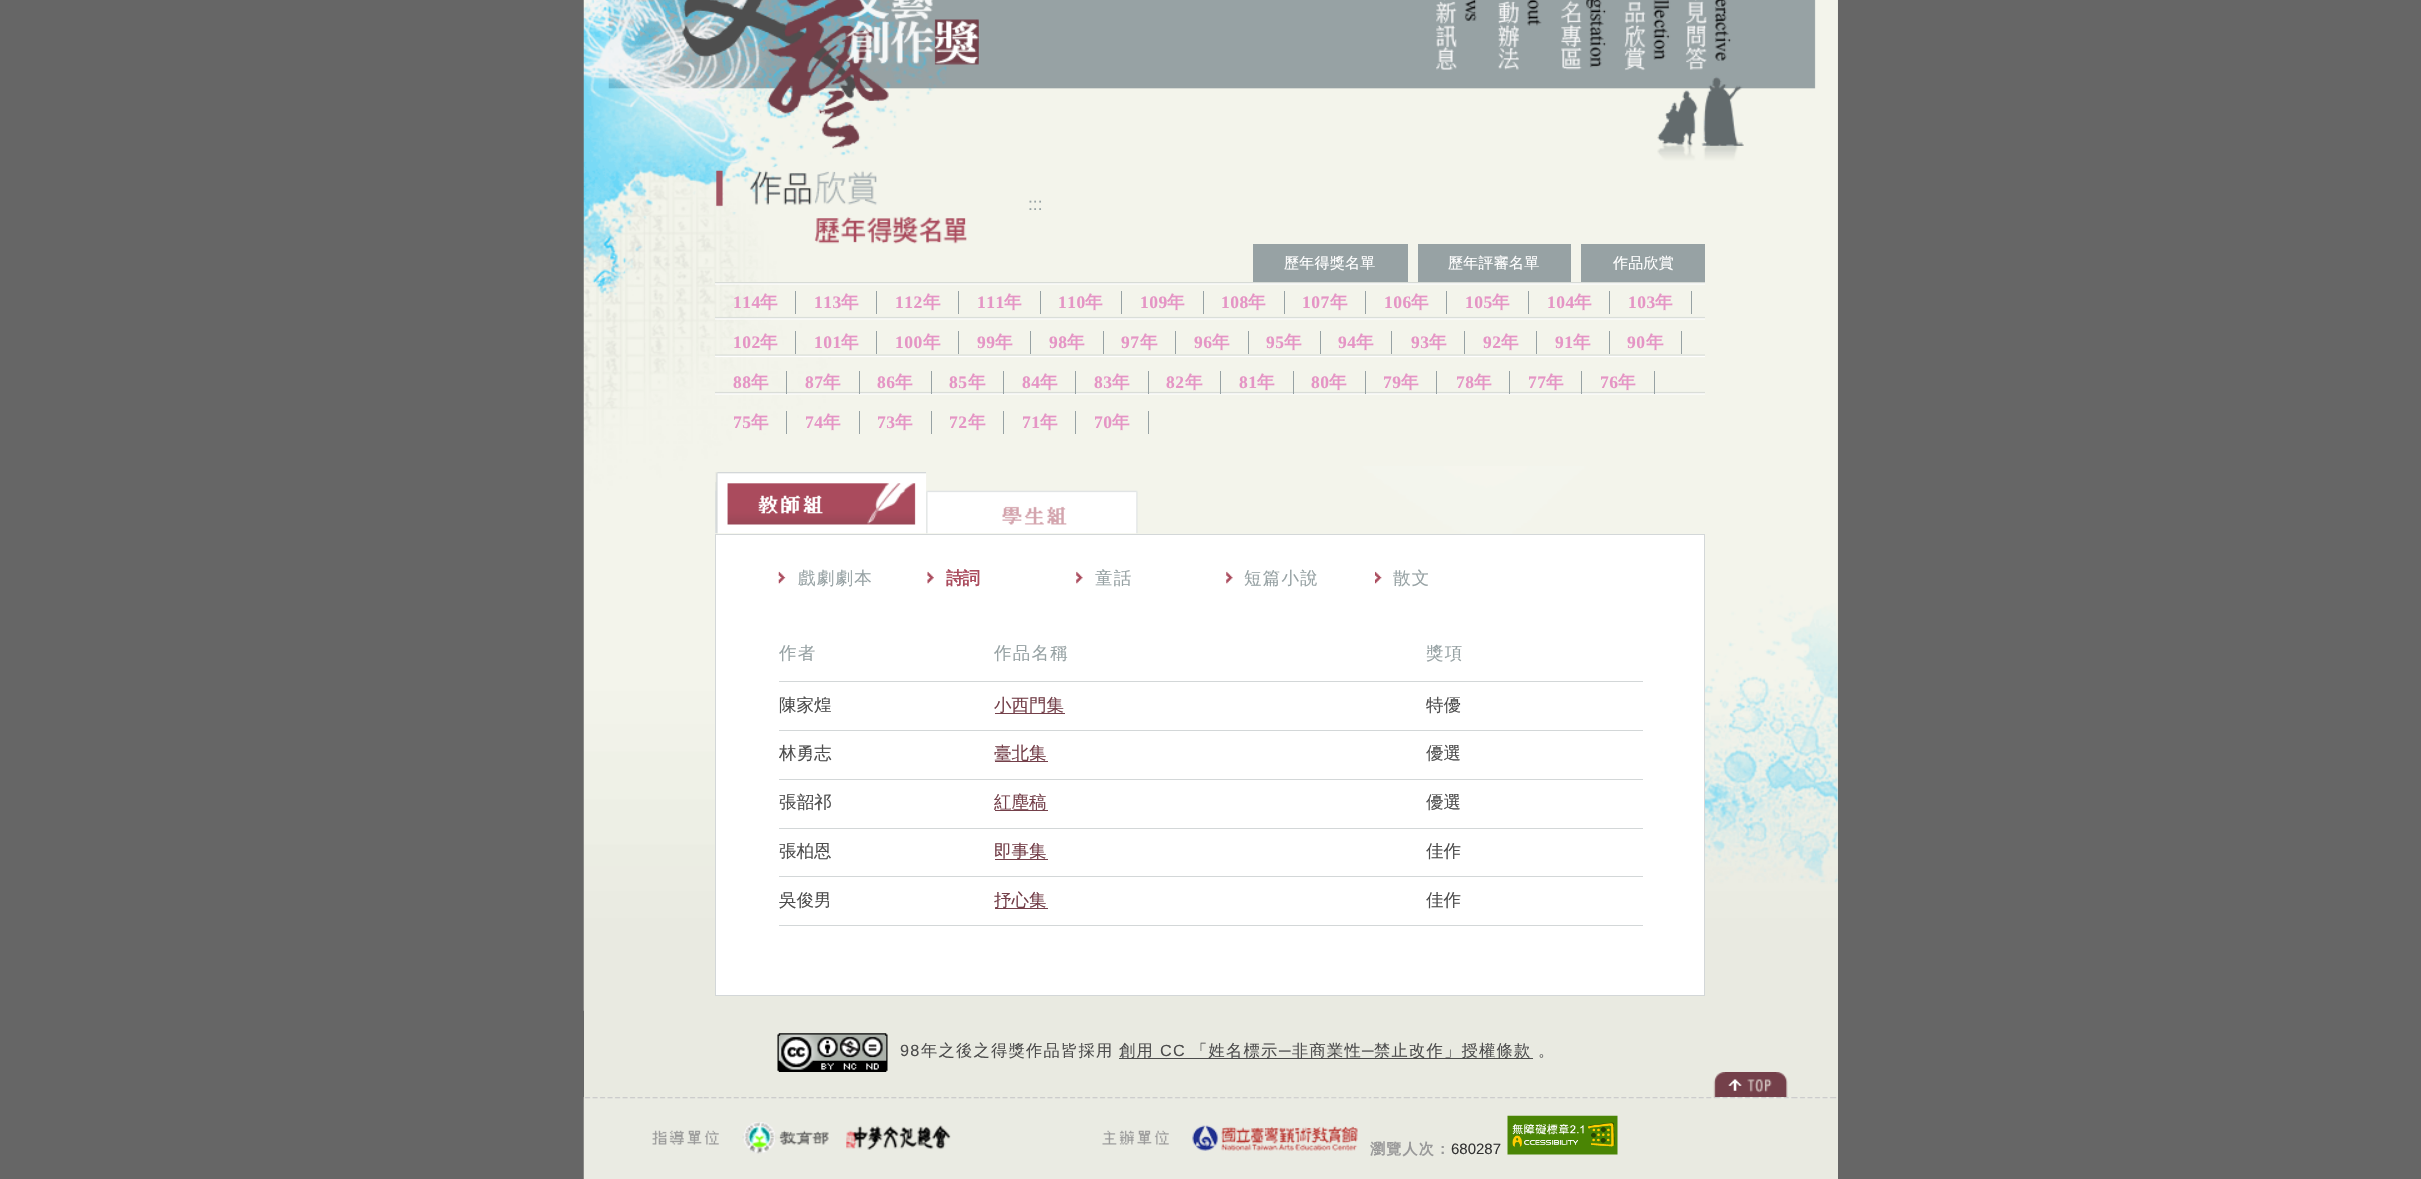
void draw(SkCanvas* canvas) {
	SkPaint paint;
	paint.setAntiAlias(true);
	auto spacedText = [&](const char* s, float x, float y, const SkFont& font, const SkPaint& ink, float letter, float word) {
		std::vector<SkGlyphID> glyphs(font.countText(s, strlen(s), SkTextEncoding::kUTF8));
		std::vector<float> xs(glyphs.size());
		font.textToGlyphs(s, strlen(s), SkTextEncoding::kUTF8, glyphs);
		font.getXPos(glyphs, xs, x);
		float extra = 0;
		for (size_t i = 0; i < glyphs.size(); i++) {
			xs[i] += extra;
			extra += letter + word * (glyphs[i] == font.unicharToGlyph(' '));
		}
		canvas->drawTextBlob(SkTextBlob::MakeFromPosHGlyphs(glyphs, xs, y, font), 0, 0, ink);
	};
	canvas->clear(0xff666666);
	paint.setColor(0xffe9eae1);
	canvas->drawRect(SkRect::MakeXYWH(584, 0, 1254, 1179), paint);
	canvas->drawImageRect(SkImages::DeferredFromEncodedData(SkData::MakeFromFileName("img1.png")), SkRect::MakeXYWH(583, 0, 1255, 1011), SkSamplingOptions());
	canvas->drawImageRect(SkImages::DeferredFromEncodedData(SkData::MakeFromFileName("img2.png")), SkRect::MakeXYWH(661, 0, 318, 166), SkSamplingOptions());
	SkFont f1(fontMgr->matchFamilyStyle("Liberation Sans", SkFontStyle::Normal()), 17.5);
	f1.setSubpixel(true);
	paint.setColor(0xff97a2a4);
	canvas->drawString(":::", 1028, 210, f1, paint);
	canvas->drawImageRect(SkImages::DeferredFromEncodedData(SkData::MakeFromFileName("img3.png")), SkRect::MakeXYWH(814, 216, 153, 28), SkSamplingOptions());
	canvas->drawRect(SkRect::MakeXYWH(1253, 244, 155, 38), paint);
	SkFont f2(fontMgr->matchFamilyStyle("WenQuanYi Zen Hei", SkFontStyle(500, SkFontStyle::kNormal_Width, SkFontStyle::kUpright_Slant)), 15);
	f2.setSubpixel(true);
	paint.setColor(0xffffffff);
	spacedText("歷年得獎名單", 1284, 268, f2, paint, 0.25, 0);
	paint.setColor(0xff97a2a4);
	canvas->drawRect(SkRect::MakeXYWH(1418, 244, 153, 38), paint);
	paint.setColor(0xffffffff);
	spacedText("歷年評審名單", 1448, 268, f2, paint, 0.25, 0);
	paint.setColor(0xff97a2a4);
	canvas->drawRect(SkRect::MakeXYWH(1581, 244, 124, 38), paint);
	paint.setColor(0xffffffff);
	spacedText("作品欣賞", 1613, 268, f2, paint, 0.25, 0);
	canvas->drawImageRect(SkImages::DeferredFromEncodedData(SkData::MakeFromFileName("img4.png")), SkRect::MakeXYWH(715, 282, 990, 113), SkSamplingOptions());
	paint.setColor(0xff97a2a4);
	canvas->drawRect(SkRect::MakeXYWH(795, 291, 1, 23), paint);
	SkFont f3(fontMgr->matchFamilyStyle("Liberation Serif", SkFontStyle::Bold()), 17.5);
	f3.setSubpixel(true);
	paint.setColor(0xffe595c5);
	spacedText("114", 733, 308, f3, paint, 0.5, 0);
	SkFont f4(fontMgr->matchFamilyStyle("WenQuanYi Zen Hei", SkFontStyle::Bold()), 17.5);
	f4.setSubpixel(true);
	spacedText("年", 760, 308, f4, paint, 0.5, 0);
	paint.setColor(0xff97a2a4);
	canvas->drawRect(SkRect::MakeXYWH(876, 291, 1, 23), paint);
	paint.setColor(0xffe595c5);
	spacedText("113", 814, 308, f3, paint, 0.5, 0);
	spacedText("年", 841, 308, f4, paint, 0.5, 0);
	paint.setColor(0xff97a2a4);
	canvas->drawRect(SkRect::MakeXYWH(958, 291, 1, 23), paint);
	paint.setColor(0xffe595c5);
	spacedText("112", 895, 308, f3, paint, 0.5, 0);
	spacedText("年", 923, 308, f4, paint, 0.5, 0);
	paint.setColor(0xff97a2a4);
	canvas->drawRect(SkRect::MakeXYWH(1040, 291, 1, 23), paint);
	paint.setColor(0xffe595c5);
	spacedText("111", 977, 308, f3, paint, 0.5, 0);
	spacedText("年", 1004, 308, f4, paint, 0.5, 0);
	paint.setColor(0xff97a2a4);
	canvas->drawRect(SkRect::MakeXYWH(1121, 291, 1, 23), paint);
	paint.setColor(0xffe595c5);
	spacedText("110", 1058, 308, f3, paint, 0.5, 0);
	spacedText("年", 1085, 308, f4, paint, 0.5, 0);
	paint.setColor(0xff97a2a4);
	canvas->drawRect(SkRect::MakeXYWH(1203, 291, 1, 23), paint);
	paint.setColor(0xffe595c5);
	spacedText("109", 1140, 308, f3, paint, 0.5, 0);
	spacedText("年", 1167, 308, f4, paint, 0.5, 0);
	paint.setColor(0xff97a2a4);
	canvas->drawRect(SkRect::MakeXYWH(1284, 291, 1, 23), paint);
	paint.setColor(0xffe595c5);
	spacedText("108", 1221, 308, f3, paint, 0.5, 0);
	spacedText("年", 1248, 308, f4, paint, 0.5, 0);
	paint.setColor(0xff97a2a4);
	canvas->drawRect(SkRect::MakeXYWH(1365, 291, 1, 23), paint);
	paint.setColor(0xffe595c5);
	spacedText("107", 1302, 308, f3, paint, 0.5, 0);
	spacedText("年", 1330, 308, f4, paint, 0.5, 0);
	paint.setColor(0xff97a2a4);
	canvas->drawRect(SkRect::MakeXYWH(1446, 291, 1, 23), paint);
	paint.setColor(0xffe595c5);
	spacedText("106", 1384, 308, f3, paint, 0.5, 0);
	spacedText("年", 1411, 308, f4, paint, 0.5, 0);
	paint.setColor(0xff97a2a4);
	canvas->drawRect(SkRect::MakeXYWH(1528, 291, 1, 23), paint);
	paint.setColor(0xffe595c5);
	spacedText("105", 1465, 308, f3, paint, 0.5, 0);
	spacedText("年", 1492, 308, f4, paint, 0.5, 0);
	paint.setColor(0xff97a2a4);
	canvas->drawRect(SkRect::MakeXYWH(1609, 291, 1, 23), paint);
	paint.setColor(0xffe595c5);
	spacedText("104", 1547, 308, f3, paint, 0.5, 0);
	spacedText("年", 1574, 308, f4, paint, 0.5, 0);
	paint.setColor(0xff97a2a4);
	canvas->drawRect(SkRect::MakeXYWH(1691, 291, 1, 23), paint);
	paint.setColor(0xffe595c5);
	spacedText("103", 1628, 308, f3, paint, 0.5, 0);
	spacedText("年", 1655, 308, f4, paint, 0.5, 0);
	paint.setColor(0xff97a2a4);
	canvas->drawRect(SkRect::MakeXYWH(795, 331, 1, 23), paint);
	paint.setColor(0xffe595c5);
	spacedText("102", 733, 348, f3, paint, 0.5, 0);
	spacedText("年", 760, 348, f4, paint, 0.5, 0);
	paint.setColor(0xff97a2a4);
	canvas->drawRect(SkRect::MakeXYWH(876, 331, 1, 23), paint);
	paint.setColor(0xffe595c5);
	spacedText("101", 814, 348, f3, paint, 0.5, 0);
	spacedText("年", 841, 348, f4, paint, 0.5, 0);
	paint.setColor(0xff97a2a4);
	canvas->drawRect(SkRect::MakeXYWH(958, 331, 1, 23), paint);
	paint.setColor(0xffe595c5);
	spacedText("100", 895, 348, f3, paint, 0.5, 0);
	spacedText("年", 923, 348, f4, paint, 0.5, 0);
	paint.setColor(0xff97a2a4);
	canvas->drawRect(SkRect::MakeXYWH(1030, 331, 1, 23), paint);
	paint.setColor(0xffe595c5);
	spacedText("99", 977, 348, f3, paint, 0.5, 0);
	spacedText("年", 995, 348, f4, paint, 0.5, 0);
	paint.setColor(0xff97a2a4);
	canvas->drawRect(SkRect::MakeXYWH(1103, 331, 1, 23), paint);
	paint.setColor(0xffe595c5);
	spacedText("98", 1049, 348, f3, paint, 0.5, 0);
	spacedText("年", 1067, 348, f4, paint, 0.5, 0);
	paint.setColor(0xff97a2a4);
	canvas->drawRect(SkRect::MakeXYWH(1175, 331, 1, 23), paint);
	paint.setColor(0xffe595c5);
	spacedText("97", 1121, 348, f3, paint, 0.5, 0);
	spacedText("年", 1140, 348, f4, paint, 0.5, 0);
	paint.setColor(0xff97a2a4);
	canvas->drawRect(SkRect::MakeXYWH(1248, 331, 1, 23), paint);
	paint.setColor(0xffe595c5);
	spacedText("96", 1194, 348, f3, paint, 0.5, 0);
	spacedText("年", 1212, 348, f4, paint, 0.5, 0);
	paint.setColor(0xff97a2a4);
	canvas->drawRect(SkRect::MakeXYWH(1320, 331, 1, 23), paint);
	paint.setColor(0xffe595c5);
	spacedText("95", 1266, 348, f3, paint, 0.5, 0);
	spacedText("年", 1284, 348, f4, paint, 0.5, 0);
	paint.setColor(0xff97a2a4);
	canvas->drawRect(SkRect::MakeXYWH(1391, 331, 1, 23), paint);
	paint.setColor(0xffe595c5);
	spacedText("94", 1338, 348, f3, paint, 0.5, 0);
	spacedText("年", 1356, 348, f4, paint, 0.5, 0);
	paint.setColor(0xff97a2a4);
	canvas->drawRect(SkRect::MakeXYWH(1464, 331, 1, 23), paint);
	paint.setColor(0xffe595c5);
	spacedText("93", 1411, 348, f3, paint, 0.5, 0);
	spacedText("年", 1429, 348, f4, paint, 0.5, 0);
	paint.setColor(0xff97a2a4);
	canvas->drawRect(SkRect::MakeXYWH(1536, 331, 1, 23), paint);
	paint.setColor(0xffe595c5);
	spacedText("92", 1483, 348, f3, paint, 0.5, 0);
	spacedText("年", 1501, 348, f4, paint, 0.5, 0);
	paint.setColor(0xff97a2a4);
	canvas->drawRect(SkRect::MakeXYWH(1609, 331, 1, 23), paint);
	paint.setColor(0xffe595c5);
	spacedText("91", 1555, 348, f3, paint, 0.5, 0);
	spacedText("年", 1573, 348, f4, paint, 0.5, 0);
	paint.setColor(0xff97a2a4);
	canvas->drawRect(SkRect::MakeXYWH(1681, 331, 1, 23), paint);
	paint.setColor(0xffe595c5);
	spacedText("90", 1627, 348, f3, paint, 0.5, 0);
	spacedText("年", 1646, 348, f4, paint, 0.5, 0);
	paint.setColor(0xff97a2a4);
	canvas->drawRect(SkRect::MakeXYWH(786, 371, 1, 23), paint);
	paint.setColor(0xffe595c5);
	spacedText("88", 733, 388, f3, paint, 0.5, 0);
	spacedText("年", 751, 388, f4, paint, 0.5, 0);
	paint.setColor(0xff97a2a4);
	canvas->drawRect(SkRect::MakeXYWH(859, 371, 1, 23), paint);
	paint.setColor(0xffe595c5);
	spacedText("87", 805, 388, f3, paint, 0.5, 0);
	spacedText("年", 823, 388, f4, paint, 0.5, 0);
	paint.setColor(0xff97a2a4);
	canvas->drawRect(SkRect::MakeXYWH(931, 371, 1, 23), paint);
	paint.setColor(0xffe595c5);
	spacedText("86", 877, 388, f3, paint, 0.5, 0);
	spacedText("年", 895, 388, f4, paint, 0.5, 0);
	paint.setColor(0xff97a2a4);
	canvas->drawRect(SkRect::MakeXYWH(1003, 371, 1, 23), paint);
	paint.setColor(0xffe595c5);
	spacedText("85", 949, 388, f3, paint, 0.5, 0);
	spacedText("年", 968, 388, f4, paint, 0.5, 0);
	paint.setColor(0xff97a2a4);
	canvas->drawRect(SkRect::MakeXYWH(1075, 371, 1, 23), paint);
	paint.setColor(0xffe595c5);
	spacedText("84", 1022, 388, f3, paint, 0.5, 0);
	spacedText("年", 1040, 388, f4, paint, 0.5, 0);
	paint.setColor(0xff97a2a4);
	canvas->drawRect(SkRect::MakeXYWH(1148, 371, 1, 23), paint);
	paint.setColor(0xffe595c5);
	spacedText("83", 1094, 388, f3, paint, 0.5, 0);
	spacedText("年", 1112, 388, f4, paint, 0.5, 0);
	paint.setColor(0xff97a2a4);
	canvas->drawRect(SkRect::MakeXYWH(1220, 371, 1, 23), paint);
	paint.setColor(0xffe595c5);
	spacedText("82", 1166, 388, f3, paint, 0.5, 0);
	spacedText("年", 1185, 388, f4, paint, 0.5, 0);
	paint.setColor(0xff97a2a4);
	canvas->drawRect(SkRect::MakeXYWH(1293, 371, 1, 23), paint);
	paint.setColor(0xffe595c5);
	spacedText("81", 1239, 388, f3, paint, 0.5, 0);
	spacedText("年", 1257, 388, f4, paint, 0.5, 0);
	paint.setColor(0xff97a2a4);
	canvas->drawRect(SkRect::MakeXYWH(1365, 371, 1, 23), paint);
	paint.setColor(0xffe595c5);
	spacedText("80", 1311, 388, f3, paint, 0.5, 0);
	spacedText("年", 1329, 388, f4, paint, 0.5, 0);
	paint.setColor(0xff97a2a4);
	canvas->drawRect(SkRect::MakeXYWH(1436, 371, 1, 23), paint);
	paint.setColor(0xffe595c5);
	spacedText("79", 1383, 388, f3, paint, 0.5, 0);
	spacedText("年", 1401, 388, f4, paint, 0.5, 0);
	paint.setColor(0xff97a2a4);
	canvas->drawRect(SkRect::MakeXYWH(1509, 371, 1, 23), paint);
	paint.setColor(0xffe595c5);
	spacedText("78", 1456, 388, f3, paint, 0.5, 0);
	spacedText("年", 1474, 388, f4, paint, 0.5, 0);
	paint.setColor(0xff97a2a4);
	canvas->drawRect(SkRect::MakeXYWH(1581, 371, 1, 23), paint);
	paint.setColor(0xffe595c5);
	spacedText("77", 1528, 388, f3, paint, 0.5, 0);
	spacedText("年", 1546, 388, f4, paint, 0.5, 0);
	paint.setColor(0xff97a2a4);
	canvas->drawRect(SkRect::MakeXYWH(1654, 371, 1, 23), paint);
	paint.setColor(0xffe595c5);
	spacedText("76", 1600, 388, f3, paint, 0.5, 0);
	spacedText("年", 1618, 388, f4, paint, 0.5, 0);
	paint.setColor(0xff97a2a4);
	canvas->drawRect(SkRect::MakeXYWH(786, 411, 1, 23), paint);
	paint.setColor(0xffe595c5);
	spacedText("75", 733, 428, f3, paint, 0.5, 0);
	spacedText("年", 751, 428, f4, paint, 0.5, 0);
	paint.setColor(0xff97a2a4);
	canvas->drawRect(SkRect::MakeXYWH(859, 411, 1, 23), paint);
	paint.setColor(0xffe595c5);
	spacedText("74", 805, 428, f3, paint, 0.5, 0);
	spacedText("年", 823, 428, f4, paint, 0.5, 0);
	paint.setColor(0xff97a2a4);
	canvas->drawRect(SkRect::MakeXYWH(931, 411, 1, 23), paint);
	paint.setColor(0xffe595c5);
	spacedText("73", 877, 428, f3, paint, 0.5, 0);
	spacedText("年", 895, 428, f4, paint, 0.5, 0);
	paint.setColor(0xff97a2a4);
	canvas->drawRect(SkRect::MakeXYWH(1003, 411, 1, 23), paint);
	paint.setColor(0xffe595c5);
	spacedText("72", 949, 428, f3, paint, 0.5, 0);
	spacedText("年", 968, 428, f4, paint, 0.5, 0);
	paint.setColor(0xff97a2a4);
	canvas->drawRect(SkRect::MakeXYWH(1075, 411, 1, 23), paint);
	paint.setColor(0xffe595c5);
	spacedText("71", 1022, 428, f3, paint, 0.5, 0);
	spacedText("年", 1040, 428, f4, paint, 0.5, 0);
	paint.setColor(0xff97a2a4);
	canvas->drawRect(SkRect::MakeXYWH(1148, 411, 1, 23), paint);
	paint.setColor(0xffe595c5);
	spacedText("70", 1094, 428, f3, paint, 0.5, 0);
	spacedText("年", 1112, 428, f4, paint, 0.5, 0);
	canvas->drawImageRect(SkImages::DeferredFromEncodedData(SkData::MakeFromFileName("img5.png")), SkRect::MakeXYWH(715, 472, 212, 62), SkSamplingOptions());
	canvas->drawImageRect(SkImages::DeferredFromEncodedData(SkData::MakeFromFileName("img6.png")), SkRect::MakeXYWH(926, 472, 212, 62), SkSamplingOptions());
	paint.setColor(0xffffffff);
	canvas->drawRect(SkRect::MakeXYWH(715.5, 534.5, 989, 461), paint);
	paint.setStroke(true);
	paint.setStrokeWidth(1);
	paint.setColor(0xffd3d7d8);
	canvas->drawRect(SkRect::MakeXYWH(715.5, 534.5, 989, 461), paint);
	canvas->drawImageRect(SkImages::DeferredFromEncodedData(SkData::MakeFromFileName("img7.png")), SkRect::MakeXYWH(778, 571, 8, 13), SkSamplingOptions());
	SkFont f5(fontMgr->matchFamilyStyle("WenQuanYi Zen Hei", SkFontStyle(500, SkFontStyle::kNormal_Width, SkFontStyle::kUpright_Slant)), 17.5);
	f5.setSubpixel(true);
	paint.setStroke(false);
	paint.setColor(0xff97a2a4);
	spacedText("戲劇劇本", 798, 584, f5, paint, 1.25, 0);
	canvas->drawImageRect(SkImages::DeferredFromEncodedData(SkData::MakeFromFileName("img8.png")), SkRect::MakeXYWH(927, 571, 7, 13), SkSamplingOptions());
	paint.setColor(0xffaa4b5d);
	spacedText("詩詞", 946, 584, f4, paint, -1, 0);
	canvas->drawImageRect(SkImages::DeferredFromEncodedData(SkData::MakeFromFileName("img9.png")), SkRect::MakeXYWH(1076, 571, 7, 13), SkSamplingOptions());
	paint.setColor(0xff97a2a4);
	spacedText("童話", 1095, 584, f5, paint, 1.25, 0);
	canvas->drawImageRect(SkImages::DeferredFromEncodedData(SkData::MakeFromFileName("img9.png")), SkRect::MakeXYWH(1226, 571, 7, 13), SkSamplingOptions());
	spacedText("短篇小說", 1244, 584, f5, paint, 1.25, 0);
	canvas->drawImageRect(SkImages::DeferredFromEncodedData(SkData::MakeFromFileName("img10.png")), SkRect::MakeXYWH(1375, 571, 7, 13), SkSamplingOptions());
	spacedText("散文", 1393, 584, f5, paint, 1.25, 0);
	spacedText("作者", 779, 659, f5, paint, 1.25, 0);
	spacedText("作品名稱", 994, 659, f5, paint, 1.25, 0);
	paint.setColor(0xffd3d7d8);
	canvas->drawRect(SkRect::MakeXYWH(779, 681, 864, 1), paint);
	paint.setColor(0xff97a2a4);
	spacedText("獎項", 1426, 659, f5, paint, 1.25, 0);
	paint.setColor(0xff4d4d4d);
	canvas->drawString("陳家煌", 779, 711, f5, paint);
	paint.setColor(0xff74404a);
	canvas->drawRect(SkRect::MakeXYWH(995, 713, 70, 1), paint);
	canvas->drawString("小西門集", 994, 711, f5, paint);
	paint.setColor(0xffd3d7d8);
	canvas->drawRect(SkRect::MakeXYWH(779, 730, 864, 1), paint);
	paint.setColor(0xff4d4d4d);
	canvas->drawString("特優", 1426, 711, f5, paint);
	canvas->drawString("林勇志", 779, 759, f5, paint);
	paint.setColor(0xff74404a);
	canvas->drawRect(SkRect::MakeXYWH(995, 761, 53, 1), paint);
	canvas->drawString("臺北集", 994, 759, f5, paint);
	paint.setColor(0xffd3d7d8);
	canvas->drawRect(SkRect::MakeXYWH(779, 779, 864, 1), paint);
	paint.setColor(0xff4d4d4d);
	canvas->drawString("優選", 1426, 759, f5, paint);
	canvas->drawString("張韶祁", 779, 808, f5, paint);
	paint.setColor(0xff74404a);
	canvas->drawRect(SkRect::MakeXYWH(995, 810, 53, 1), paint);
	canvas->drawString("紅塵稿", 994, 808, f5, paint);
	paint.setColor(0xffd3d7d8);
	canvas->drawRect(SkRect::MakeXYWH(779, 828, 864, 1), paint);
	paint.setColor(0xff4d4d4d);
	canvas->drawString("優選", 1426, 808, f5, paint);
	canvas->drawString("張柏恩", 779, 857, f5, paint);
	paint.setColor(0xff74404a);
	canvas->drawRect(SkRect::MakeXYWH(995, 859, 53, 1), paint);
	canvas->drawString("即事集", 994, 857, f5, paint);
	paint.setColor(0xffd3d7d8);
	canvas->drawRect(SkRect::MakeXYWH(779, 876, 864, 1), paint);
	paint.setColor(0xff4d4d4d);
	canvas->drawString("佳作", 1426, 857, f5, paint);
	canvas->drawString("吳俊男", 779, 906, f5, paint);
	paint.setColor(0xff74404a);
	canvas->drawRect(SkRect::MakeXYWH(995, 908, 53, 1), paint);
	canvas->drawString("抒心集", 994, 906, f5, paint);
	paint.setColor(0xffd3d7d8);
	canvas->drawRect(SkRect::MakeXYWH(779, 925, 864, 1), paint);
	paint.setColor(0xff4d4d4d);
	canvas->drawString("佳作", 1426, 906, f5, paint);
	canvas->drawImageRect(SkImages::DeferredFromEncodedData(SkData::MakeFromFileName("img11.png")), SkRect::MakeXYWH(777, 1033, 111, 39), SkSamplingOptions());
	SkFont f6(fontMgr->matchFamilyStyle("Liberation Sans", SkFontStyle::Normal()), 16.25);
	f6.setSubpixel(true);
	spacedText("98", 900, 1056, f6, paint, 1.25, 0);
	SkFont f7(fontMgr->matchFamilyStyle("WenQuanYi Zen Hei", SkFontStyle(500, SkFontStyle::kNormal_Width, SkFontStyle::kUpright_Slant)), 16.25);
	f7.setSubpixel(true);
	spacedText("年之後之得獎作品皆採用", 921, 1056, f7, paint, 1.25, 0);
	canvas->drawRect(SkRect::MakeXYWH(1119, 1058, 414, 1), paint);
	spacedText("創用", 1119, 1056, f7, paint, 1.25, 0);
	spacedText("CC", 1160, 1056, f6, paint, 1.25, 0);
	spacedText("「姓名標示", 1191, 1056, f7, paint, 1.25, 0);
	spacedText("─", 1279, 1056, f6, paint, 1.25, 0);
	spacedText("非商業性", 1292, 1056, f7, paint, 1.25, 0);
	spacedText("─", 1362, 1056, f6, paint, 1.25, 0);
	spacedText("禁止改作」授權條款", 1374, 1056, f7, paint, 1.25, 0);
	spacedText("。", 1538, 1056, f7, paint, 1.25, 0);
	canvas->drawImageRect(SkImages::DeferredFromEncodedData(SkData::MakeFromFileName("img12.png")), SkRect::MakeXYWH(1713, 1072, 75, 25), SkSamplingOptions());
	canvas->drawImageRect(SkImages::DeferredFromEncodedData(SkData::MakeFromFileName("img13.png")), SkRect::MakeXYWH(583, 1097, 787, 82), SkSamplingOptions());
	canvas->drawImageRect(SkImages::DeferredFromEncodedData(SkData::MakeFromFileName("img14.png")), SkRect::MakeXYWH(1370, 1097, 467, 2), SkSamplingOptions());
	SkFont f8(fontMgr->matchFamilyStyle("WenQuanYi Zen Hei", SkFontStyle::Bold()), 15);
	f8.setSubpixel(true);
	paint.setColor(0xff999999);
	spacedText("瀏覽人次：", 1370, 1154, f8, paint, 1.25, 0);
	SkFont f9(fontMgr->matchFamilyStyle("Liberation Sans", SkFontStyle::Normal()), 15);
	f9.setSubpixel(true);
	paint.setColor(0xff333333);
	canvas->drawString("680287", 1451, 1154, f9, paint);
	canvas->drawImageRect(SkImages::DeferredFromEncodedData(SkData::MakeFromFileName("img15.png")), SkRect::MakeXYWH(1507, 1115, 111, 40), SkSamplingOptions());
}
